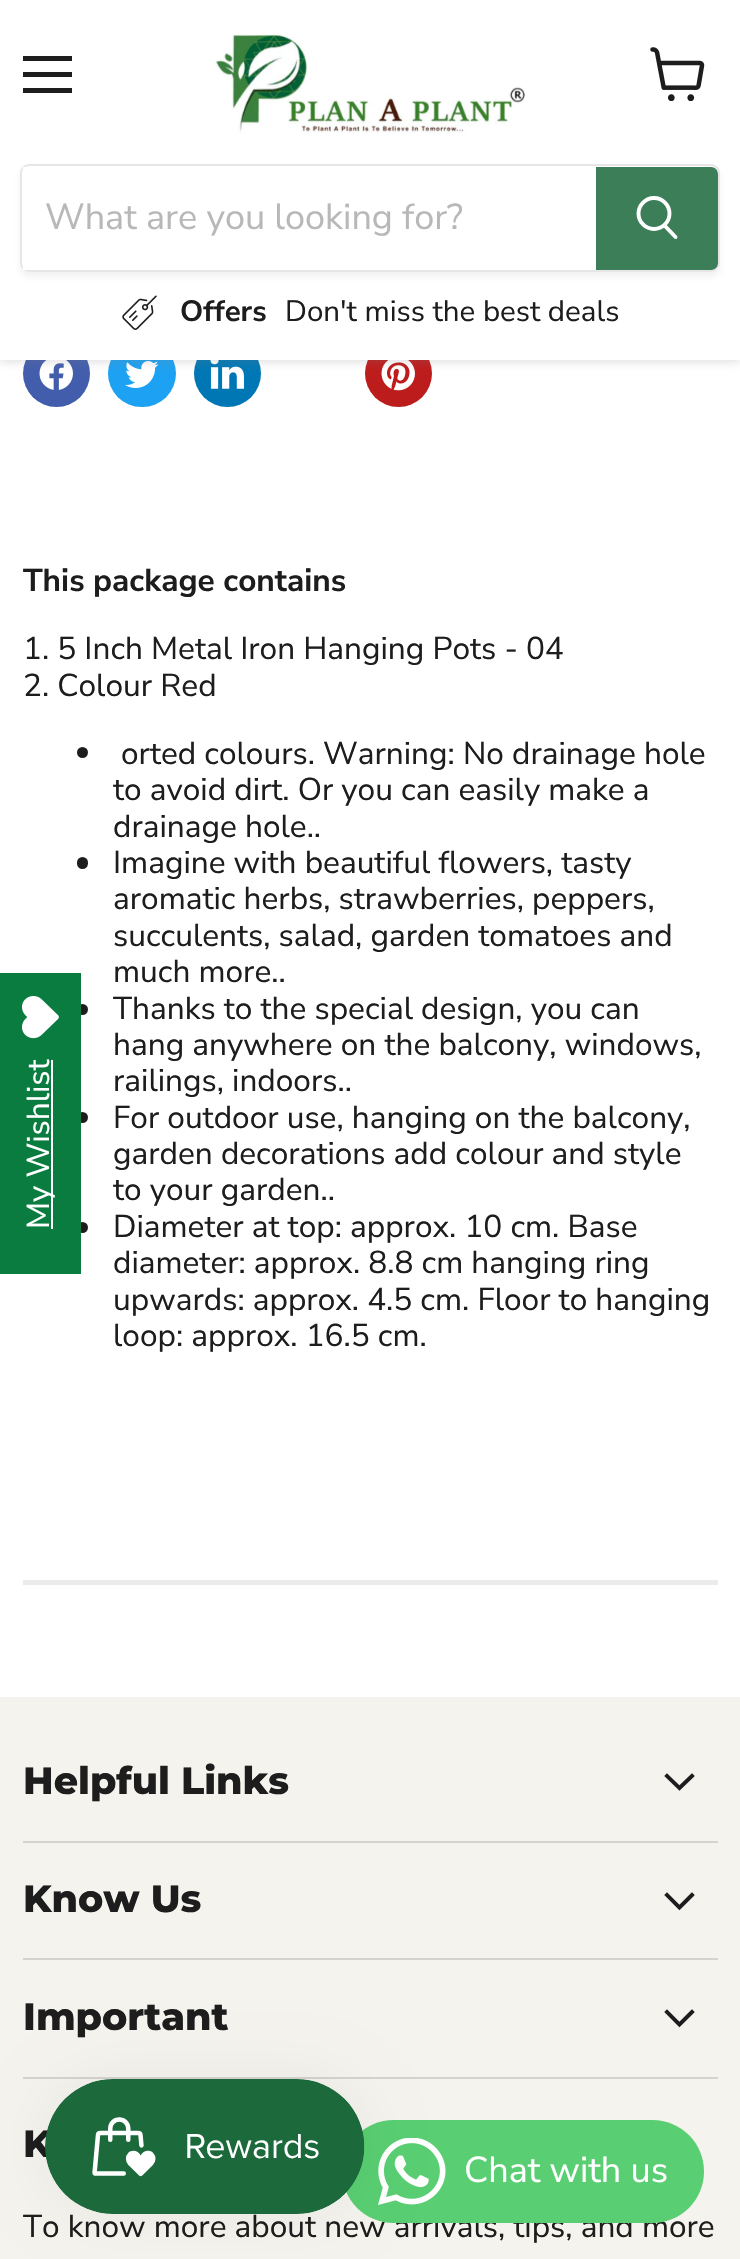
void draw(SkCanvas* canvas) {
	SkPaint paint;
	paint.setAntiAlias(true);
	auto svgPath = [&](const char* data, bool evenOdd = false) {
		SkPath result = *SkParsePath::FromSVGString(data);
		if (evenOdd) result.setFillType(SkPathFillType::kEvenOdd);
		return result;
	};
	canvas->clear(0xffffffff);
	paint.setColor(0xff425dab);
	canvas->drawCircle(56.5, 373.5, 33.5, paint);
	canvas->drawImageRect(SkImages::DeferredFromEncodedData(SkData::MakeFromFileName("img4.png")), SkRect::MakeXYWH(39, 360, 34, 30), SkSamplingOptions());
	paint.setColor(0xff1da1f2);
	canvas->drawRoundRect(SkRect::MakeXYWH(108, 340, 68, 67), 33.5, 33.5, paint);
	canvas->drawImageRect(SkImages::DeferredFromEncodedData(SkData::MakeFromFileName("img5.png")), SkRect::MakeXYWH(125, 361, 34, 27), SkSamplingOptions());
	paint.setColor(0xff0077b5);
	canvas->drawCircle(227.5, 373.5, 33.5, paint);
	canvas->drawImageRect(SkImages::DeferredFromEncodedData(SkData::MakeFromFileName("img6.png")), SkRect::MakeXYWH(210, 360, 34, 29), SkSamplingOptions());
	paint.setColor(0xffbd1c1c);
	canvas->drawCircle(398.5, 373.5, 33.5, paint);
	canvas->drawImageRect(SkImages::DeferredFromEncodedData(SkData::MakeFromFileName("img7.png")), SkRect::MakeXYWH(381, 360, 34, 31), SkSamplingOptions());
	paint.setColor(0x40808080);
	paint.setMaskFilter(SkMaskFilter::MakeBlur(kNormal_SkBlurStyle, 4.5));
	canvas->drawRect(SkRect::MakeXYWH(0, 2, 740, 360), paint);
	paint.setMaskFilter(nullptr);
	paint.setColor(0xffffffff);
	canvas->drawRect(SkRect::MakeXYWH(0, 0, 740, 360), paint);
	paint.setColor(0xff1d1d1d);
	canvas->drawRect(SkRect::MakeXYWH(23, 56, 49, 5), paint);
	canvas->drawRect(SkRect::MakeXYWH(23, 72, 49, 5), paint);
	canvas->drawRect(SkRect::MakeXYWH(23, 88, 49, 5), paint);
	canvas->drawImageRect(SkImages::DeferredFromEncodedData(SkData::MakeFromFileName("img1.png")), SkRect::MakeXYWH(650, 47, 55, 54), SkSamplingOptions());
	canvas->drawImageRect(SkImages::DeferredFromEncodedData(SkData::MakeFromFileName("img2.png")), SkRect::MakeXYWH(212, 34, 313, 99), SkSamplingOptions());
	canvas->save();
	canvas->clipPath(svgPath("M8 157H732V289H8ZM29 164H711C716 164 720 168 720 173V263C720 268 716 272 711 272H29C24 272 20 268 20 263V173C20 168 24 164 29 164Z", true), true);
	paint.setColor(0x1c808080);
	paint.setMaskFilter(SkMaskFilter::MakeBlur(kNormal_SkBlurStyle, 3.5));
	canvas->drawRoundRect(SkRect::MakeXYWH(20, 169, 700, 108), 9, 9, paint);
	paint.setMaskFilter(nullptr);
	canvas->restore();
	paint.setStroke(true);
	paint.setStrokeWidth(2);
	paint.setColor(0x33808080);
	canvas->drawRoundRect(SkRect::MakeXYWH(21, 165, 698, 106), 8, 8, paint);
	paint.setStroke(false);
	paint.setColor(0xffffffff);
	canvas->drawRect(SkRect::MakeXYWH(23, 167, 5, 103), paint);
	SkFont f1(fontMgr->matchFamilyStyle("Nunito Sans", SkFontStyle::Normal()), 36);
	f1.setSubpixel(true);
	paint.setColor(0xffb8b8b8);
	canvas->drawString("What are you looking for?", 45, 229, f1, paint);
	paint.setColor(0xff3b7e57);
	canvas->drawPath(svgPath("M597 168H711C714.5 168 717 170.5 717 174V263C717 266.5 714.5 269 711 269H597Z"), paint);
	paint.setStroke(true);
	canvas->drawPath(svgPath("M597 168H711C714.5 168 717 170.5 717 174V263C717 266.5 714.5 269 711 269H597Z"), paint);
	paint.setStrokeWidth(3.9);
	paint.setStrokeCap(SkPaint::kRound_Cap);
	paint.setColor(0xffffffff);
	canvas->drawPath(svgPath("M675.5 237L665 226"), paint);
	paint.setStrokeCap(SkPaint::kButt_Cap);
	canvas->drawCircle(654, 213.5, 15.5, paint);
	canvas->drawImageRect(SkImages::DeferredFromEncodedData(SkData::MakeFromFileName("img3.png")), SkRect::MakeXYWH(122, 295, 35, 35), SkSamplingOptions());
	SkFont f2(fontMgr->matchFamilyStyle("Nunito Sans", SkFontStyle::Bold()), 29.5);
	f2.setSubpixel(true);
	paint.setStroke(false);
	paint.setColor(0xff1d1d1d);
	canvas->drawString("Offers", 180, 321, f2, paint);
	SkFont f3(fontMgr->matchFamilyStyle("Nunito Sans", SkFontStyle::Normal()), 29.5);
	f3.setSubpixel(true);
	canvas->drawString("Don't miss the best deals", 285, 321, f3, paint);
	SkFont f4(fontMgr->matchFamilyStyle("Nunito Sans", SkFontStyle::Bold()), 31.6);
	f4.setSubpixel(true);
	canvas->drawString("This package contains", 23, 591, f4, paint);
	SkFont f5(fontMgr->matchFamilyStyle("Nunito Sans", SkFontStyle::Normal()), 31.6);
	f5.setSubpixel(true);
	canvas->drawString("1. 5 Inch Metal Iron Hanging Pots - 04", 23, 659, f5, paint);
	canvas->drawString("2. Colour Red", 23, 696, f5, paint);
	canvas->drawCircle(82.5, 752.5, 5.5, paint);
	canvas->drawString("orted colours. Warning: No drainage hole", 121, 764, f5, paint);
	canvas->drawString("to avoid dirt. Or you can easily make a", 113, 800, f5, paint);
	canvas->drawString("drainage hole..", 113, 837, f5, paint);
	canvas->drawRoundRect(SkRect::MakeXYWH(77, 857, 11, 12), 5.5, 5.5, paint);
	canvas->drawString("Imagine with beautiful flowers, tasty", 113, 873, f5, paint);
	canvas->drawString("aromatic herbs, strawberries, peppers,", 113, 909, f5, paint);
	canvas->drawString("succulents, salad, garden tomatoes and", 113, 946, f5, paint);
	canvas->drawString("much more..", 113, 982, f5, paint);
	canvas->drawCircle(82.5, 1009.5, 5.5, paint);
	canvas->drawString("Thanks to the special design, you can", 113, 1019, f5, paint);
	canvas->drawString("hang anywhere on the balcony, windows,", 113, 1055, f5, paint);
	canvas->drawString("railings, indoors..", 113, 1091, f5, paint);
	canvas->drawCircle(82.5, 1117.5, 5.5, paint);
	canvas->drawString("For outdoor use, hanging on the balcony,", 113, 1128, f5, paint);
	canvas->drawString("garden decorations add colour and style", 113, 1164, f5, paint);
	canvas->drawString("to your garden..", 113, 1200, f5, paint);
	canvas->drawCircle(82.5, 1227.5, 5.5, paint);
	canvas->drawString("Diameter at top: approx. 10 cm. Base", 113, 1237, f5, paint);
	canvas->drawString("diameter: approx. 8.8 cm hanging ring", 113, 1273, f5, paint);
	canvas->drawString("upwards: approx. 4.5 cm. Floor to hanging", 113, 1310, f5, paint);
	canvas->drawString("loop: approx. 16.5 cm.", 113, 1346, f5, paint);
	paint.setColor(0x29808080);
	canvas->drawRect(SkRect::MakeXYWH(23, 1580, 695, 5), paint);
	paint.setColor(0xff0a7c3f);
	canvas->drawRect(SkRect::MakeXYWH(0, 973, 81, 301), paint);
	canvas->drawImageRect(SkImages::DeferredFromEncodedData(SkData::MakeFromFileName("img8.png")), SkRect::MakeXYWH(22, 996, 37, 43), SkSamplingOptions());
	paint.setColor(0xffffffff);
	canvas->drawRect(SkRect::MakeXYWH(51, 1060, 2, 169), paint);
	canvas->save();
	canvas->rotate(-90, 49, 1229);
	canvas->drawString("My Wishlist", 49, 1229, f5, paint);
	canvas->restore();
	paint.setColor(0xfff5f3ed);
	canvas->drawRect(SkRect::MakeXYWH(0, 1697, 740, 562), paint);
	paint.setColor(0xffd5d3ce);
	canvas->drawRect(SkRect::MakeXYWH(23, 1841, 695, 2), paint);
	SkFont f6(fontMgr->matchFamilyStyle("Montserrat", SkFontStyle(800, SkFontStyle::kNormal_Width, SkFontStyle::kUpright_Slant)), 38);
	f6.setSubpixel(true);
	paint.setColor(0xff1d1d1d);
	canvas->drawString("Helpful Links", 23, 1794, f6, paint);
	paint.setStroke(true);
	paint.setStrokeCap(SkPaint::kSquare_Cap);
	canvas->drawPath(svgPath("M679.5 1788L692 1776M679.5 1788L667 1776"), paint);
	paint.setStroke(false);
	paint.setColor(0xffd5d3ce);
	canvas->drawRect(SkRect::MakeXYWH(23, 1958, 695, 2), paint);
	paint.setColor(0xff1d1d1d);
	canvas->drawString("Know Us", 23, 1912, f6, paint);
	paint.setStroke(true);
	canvas->drawPath(svgPath("M679.5 1907.5L692 1895M679.5 1907.5L667 1895"), paint);
	paint.setStroke(false);
	paint.setColor(0xffd5d3ce);
	canvas->drawRect(SkRect::MakeXYWH(23, 2077, 695, 2), paint);
	paint.setColor(0xff1d1d1d);
	canvas->drawString("Important", 23, 2030, f6, paint);
	paint.setStroke(true);
	canvas->drawPath(svgPath("M679.5 2024.5L692 2012M679.5 2024.5L667 2012"), paint);
	paint.setStroke(false);
	canvas->drawString("K", 23, 2157, f6, paint);
	canvas->drawString("To know more about new arrivals, tips, and more", 23, 2237, f5, paint);
	paint.setColor(0xff59ce72);
	canvas->drawRoundRect(SkRect::MakeXYWH(342, 2120, 362, 103), 51.5, 51.5, paint);
	canvas->drawImageRect(SkImages::DeferredFromEncodedData(SkData::MakeFromFileName("img10.png")), SkRect::MakeXYWH(378, 2138, 68, 67), SkSamplingOptions());
	paint.setColor(0x0d000000);
	paint.setMaskFilter(SkMaskFilter::MakeBlur(kNormal_SkBlurStyle, 28));
	canvas->drawRoundRect(SkRect::MakeXYWH(45, 2079, 320, 135), 67.5, 67.5, paint);
	paint.setMaskFilter(nullptr);
	canvas->drawImageRect(SkImages::DeferredFromEncodedData(SkData::MakeFromFileName("img9.png")), SkRect::MakeXYWH(45, 2079, 320, 135), SkSamplingOptions());
	paint.setColor(0xffffffff);
	canvas->drawString("Chat with us", 464, 2182, f1, paint);
}
